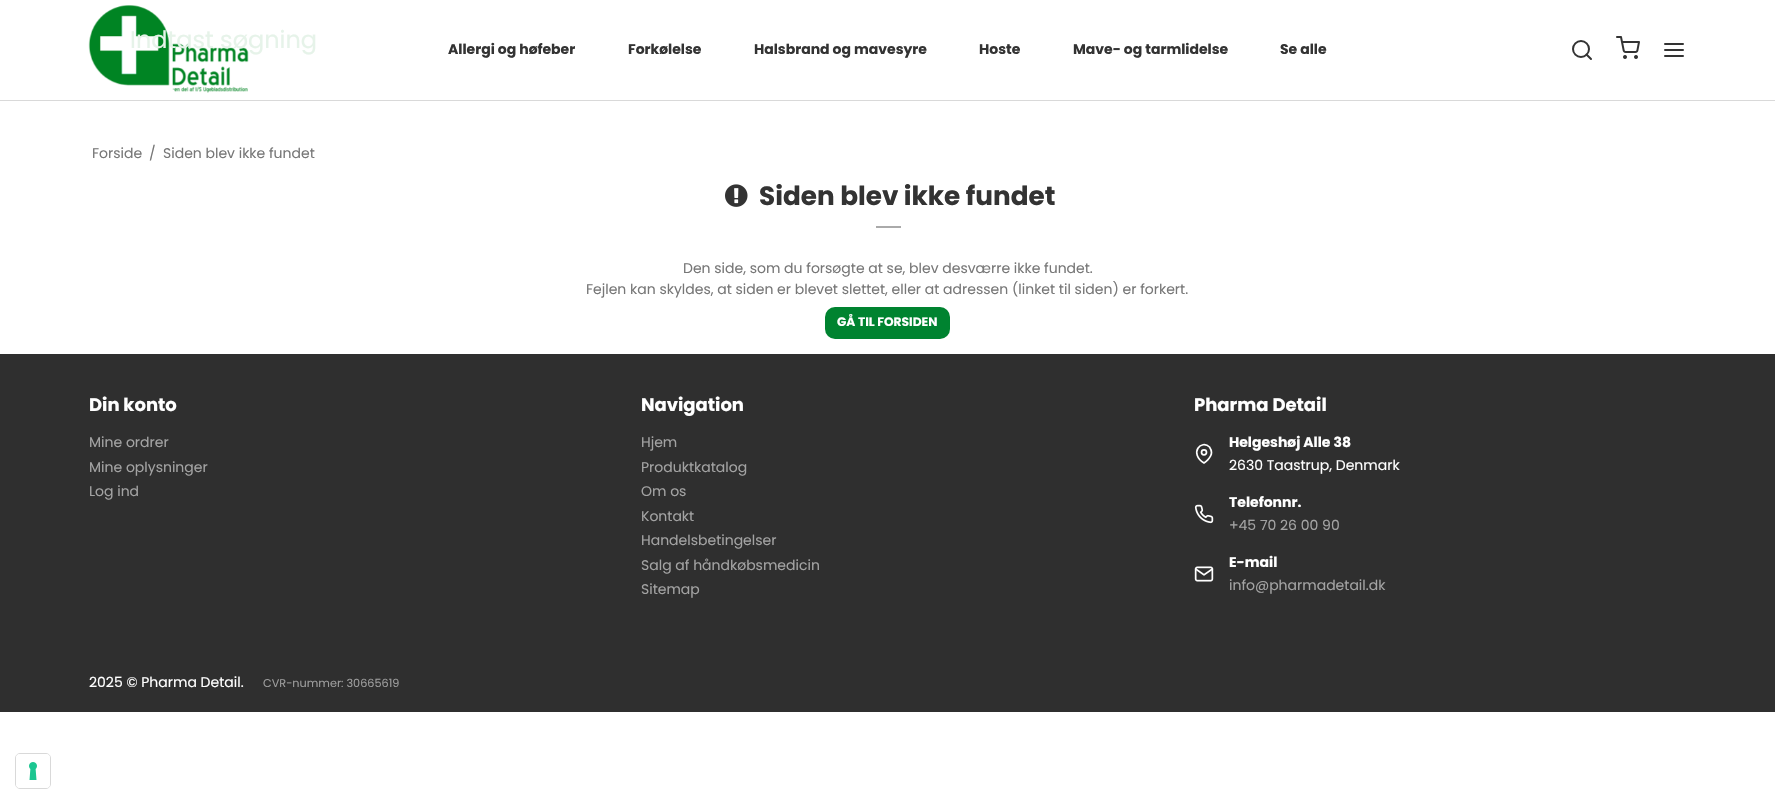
void draw(SkCanvas* canvas) {
	SkPaint paint;
	paint.setAntiAlias(true);
	auto svgPath = [&](const char* data, bool evenOdd = false) {
		SkPath result = *SkParsePath::FromSVGString(data);
		if (evenOdd) result.setFillType(SkPathFillType::kEvenOdd);
		return result;
	};
	canvas->clear(0xffffffff);
	paint.setColor(0xffd9d9d9);
	canvas->drawRect(SkRect::MakeXYWH(0, 100, 1775, 1), paint);
	canvas->drawImageRect(SkImages::DeferredFromEncodedData(SkData::MakeFromFileName("img1.png")), SkRect::MakeXYWH(88, 5, 161, 88), SkSamplingOptions());
	SkFont f1(fontMgr->matchFamilyStyle("Poppins", SkFontStyle::Normal()), 24);
	f1.setSubpixel(true);
	paint.setColor(0xffe6f3e9);
	canvas->drawString("Indtast søgning", 130, 48, f1, paint);
	paint.setStroke(true);
	paint.setStrokeWidth(2);
	paint.setColor(0xff333333);
	canvas->drawCircle(1581, 49, 8, paint);
	paint.setStrokeCap(SkPaint::kRound_Cap);
	paint.setStrokeJoin(SkPaint::kRound_Join);
	canvas->drawPath(svgPath("M1591 59L1586.5 54.5"), paint);
	canvas->drawImageRect(SkImages::DeferredFromEncodedData(SkData::MakeFromFileName("img2.png")), SkRect::MakeXYWH(1616, 36, 24, 23), SkSamplingOptions());
	canvas->drawPath(svgPath("M1665 50H1683M1665 44H1683M1665 56H1683"), paint);
	SkFont f2(fontMgr->matchFamilyStyle("Poppins", SkFontStyle::Bold()), 14);
	f2.setSubpixel(true);
	paint.setStroke(false);
	canvas->drawString("Allergi og høfeber", 448, 54, f2, paint);
	canvas->drawString("Forkølelse", 628, 54, f2, paint);
	canvas->drawString("Halsbrand og mavesyre", 754, 54, f2, paint);
	canvas->drawString("Hoste", 979, 54, f2, paint);
	canvas->drawString("Mave- og tarmlidelse", 1073, 54, f2, paint);
	canvas->drawString("Se alle", 1280, 54, f2, paint);
	SkFont f3(fontMgr->matchFamilyStyle("Poppins", SkFontStyle::Normal()), 14);
	f3.setSubpixel(true);
	paint.setColor(0xff777777);
	canvas->drawString("Forside", 92, 158, f3, paint);
	canvas->drawString("/", 149, 158, f3, paint);
	canvas->drawString("Siden blev ikke fundet", 163, 158, f3, paint);
	canvas->drawImageRect(SkImages::DeferredFromEncodedData(SkData::MakeFromFileName("img3.png")), SkRect::MakeXYWH(725, 184, 23, 23), SkSamplingOptions());
	SkFont f4(fontMgr->matchFamilyStyle("Poppins", SkFontStyle::Bold()), 26.25);
	f4.setSubpixel(true);
	paint.setColor(0xff333333);
	canvas->drawString("Siden blev ikke fundet", 759, 205, f4, paint);
	paint.setColor(0xffaaaaaa);
	canvas->drawRect(SkRect::MakeXYWH(876, 226, 25, 2), paint);
	paint.setColor(0xff777777);
	canvas->drawString("Den side, som du forsøgte at se, blev desværre ikke fundet.", 683, 273, f3, paint);
	canvas->drawString("Fejlen kan skyldes, at siden er blevet slettet, eller at adressen (linket til siden) er forkert.", 586, 294, f3, paint);
	paint.setColor(0xff008330);
	canvas->drawRoundRect(SkRect::MakeXYWH(825, 307, 125, 32), 10, 10, paint);
	SkFont f5(fontMgr->matchFamilyStyle("Poppins", SkFontStyle::Bold()), 12.25);
	f5.setSubpixel(true);
	paint.setColor(0xffffffff);
	canvas->drawString("GÅ TIL FORSIDEN", 837, 326, f5, paint);
	paint.setColor(0xff2f2f2f);
	canvas->drawRect(SkRect::MakeXYWH(0, 354, 1775, 358), paint);
	SkFont f6(fontMgr->matchFamilyStyle("Poppins", SkFontStyle::Bold()), 18);
	f6.setSubpixel(true);
	paint.setColor(0xffffffff);
	canvas->drawString("Din konto", 89, 411, f6, paint);
	paint.setColor(0xffa3a3a3);
	canvas->drawString("Mine ordrer", 89, 447, f3, paint);
	canvas->drawString("Mine oplysninger", 89, 472, f3, paint);
	canvas->drawString("Log ind", 89, 496, f3, paint);
	paint.setColor(0xffffffff);
	canvas->drawString("Navigation", 641, 411, f6, paint);
	paint.setColor(0xffa3a3a3);
	canvas->drawString("Hjem", 641, 447, f3, paint);
	canvas->drawString("Produktkatalog", 641, 472, f3, paint);
	canvas->drawString("Om os", 641, 496, f3, paint);
	canvas->drawString("Kontakt", 641, 521, f3, paint);
	canvas->drawString("Handelsbetingelser", 641, 545, f3, paint);
	canvas->drawString("Salg af håndkøbsmedicin", 641, 570, f3, paint);
	canvas->drawString("Sitemap", 641, 594, f3, paint);
	paint.setColor(0xffffffff);
	canvas->drawString("Pharma Detail", 1194, 411, f6, paint);
	paint.setStroke(true);
	paint.setStrokeWidth(1.7);
	canvas->drawPath(svgPath("M1211.5 452.5C1211.5 458 1204 463 1204 463C1188.5 453 1201.5 439 1209.5 447C1210.5 448.5 1211.5 450.5 1211.5 452.5Z"), paint);
	paint.setStrokeCap(SkPaint::kButt_Cap);
	paint.setStrokeJoin(SkPaint::kMiter_Join);
	canvas->drawCircle(1204, 452.3, 2.5, paint);
	paint.setStroke(false);
	canvas->drawString("Helgeshøj Alle 38", 1229, 447, f2, paint);
	canvas->drawString("2630 Taastrup, Denmark", 1229, 470, f3, paint);
	canvas->drawImageRect(SkImages::DeferredFromEncodedData(SkData::MakeFromFileName("img4.png")), SkRect::MakeXYWH(1194, 504, 20, 20), SkSamplingOptions());
	canvas->drawString("Telefonnr.", 1229, 507, f2, paint);
	paint.setColor(0xffa3a3a3);
	canvas->drawString("+45 70 26 00 90", 1229, 530, f3, paint);
	canvas->drawImageRect(SkImages::DeferredFromEncodedData(SkData::MakeFromFileName("img5.png")), SkRect::MakeXYWH(1194, 566, 20, 16), SkSamplingOptions());
	paint.setColor(0xffffffff);
	canvas->drawString("E-mail", 1229, 567, f2, paint);
	paint.setColor(0xffa3a3a3);
	canvas->drawString("info@pharmadetail.dk", 1229, 590, f3, paint);
	paint.setColor(0xffffffff);
	canvas->drawString("2025 © Pharma Detail.", 89, 687, f3, paint);
	SkFont f7(fontMgr->matchFamilyStyle("Poppins", SkFontStyle::Normal()), 11.25);
	f7.setSubpixel(true);
	paint.setColor(0xff9d9d9d);
	canvas->drawString("CVR-nummer: 30665619", 263, 687, f7, paint);
	paint.setStroke(true);
	paint.setStrokeWidth(1);
	paint.setColor(0xffd9d9d9);
	canvas->drawRoundRect(SkRect::MakeXYWH(15.5, 753.5, 35, 35), 4.5, 4.5, paint);
	paint.setStroke(false);
	paint.setColor(0xffffffff);
	canvas->drawRoundRect(SkRect::MakeXYWH(16, 754, 34, 34), 4, 4, paint);
	canvas->drawImageRect(SkImages::DeferredFromEncodedData(SkData::MakeFromFileName("img6.png")), SkRect::MakeXYWH(29, 762, 8, 18), SkSamplingOptions());
}
